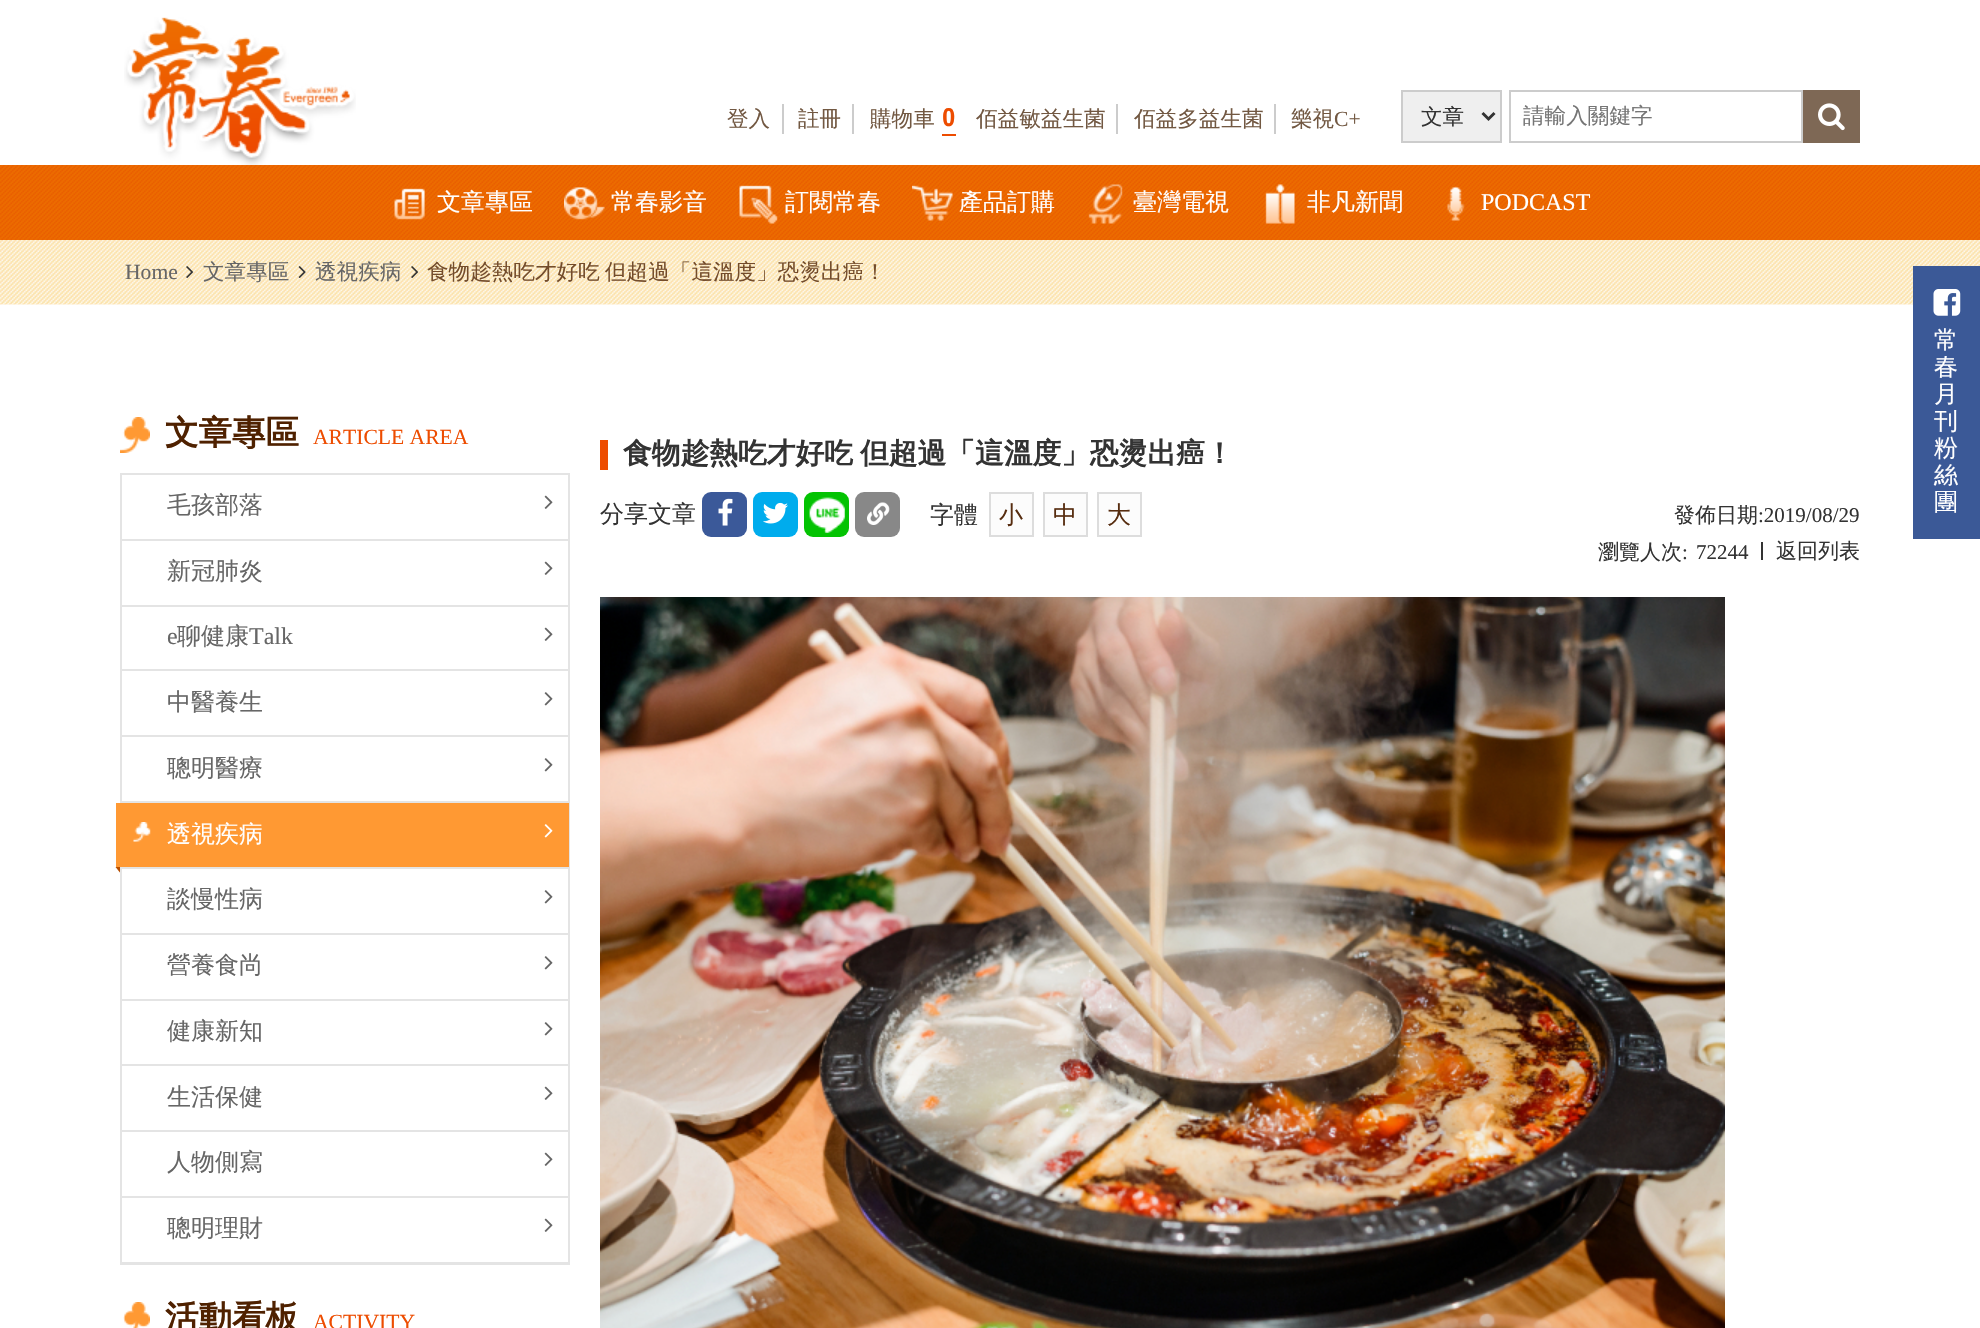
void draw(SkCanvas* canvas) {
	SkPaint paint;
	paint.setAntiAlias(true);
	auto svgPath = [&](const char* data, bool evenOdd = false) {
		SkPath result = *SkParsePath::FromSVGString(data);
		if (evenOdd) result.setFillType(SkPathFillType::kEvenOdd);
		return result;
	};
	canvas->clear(0xffffffff);
	canvas->drawImageRect(SkImages::DeferredFromEncodedData(SkData::MakeFromFileName("img1.png")), SkRect::MakeXYWH(124, 17, 232, 148), SkSamplingOptions());
	paint.setColor(0xffcccccc);
	canvas->drawRect(SkRect::MakeXYWH(782, 104, 2, 30), paint);
	SkFont f1(fontMgr->matchFamilyStyle("WenQuanYi Zen Hei", SkFontStyle(500, SkFontStyle::kNormal_Width, SkFontStyle::kUpright_Slant)), 21.6);
	f1.setSubpixel(true);
	paint.setColor(0xff725842);
	canvas->drawString("登入", 727, 126, f1, paint);
	paint.setColor(0xffcccccc);
	canvas->drawRect(SkRect::MakeXYWH(852, 104, 2, 30), paint);
	paint.setColor(0xff725842);
	canvas->drawString("註冊", 798, 126, f1, paint);
	canvas->drawString("購物車", 870, 126, f1, paint);
	SkFont f2(fontMgr->matchFamilyStyle("Francois One", SkFontStyle::Normal()), 24);
	f2.setSubpixel(true);
	paint.setColor(0xffed4c00);
	canvas->drawString("0", 942, 126, f2, paint);
	canvas->drawRect(SkRect::MakeXYWH(942, 134, 14, 2), paint);
	paint.setColor(0xffcccccc);
	canvas->drawRect(SkRect::MakeXYWH(1116, 104, 2, 30), paint);
	paint.setColor(0xff725842);
	canvas->drawString("佰益敏益生菌", 976, 126, f1, paint);
	paint.setColor(0xffcccccc);
	canvas->drawRect(SkRect::MakeXYWH(1274, 104, 2, 30), paint);
	paint.setColor(0xff725842);
	canvas->drawString("佰益多益生菌", 1134, 126, f1, paint);
	canvas->drawString("樂視", 1291, 126, f1, paint);
	SkFont f3(fontMgr->matchFamilyStyle("Liberation Serif", SkFontStyle::Normal()), 21.6);
	f3.setSubpixel(true);
	canvas->drawString("C+", 1334, 126, f3, paint);
	paint.setColor(0xffefefef);
	canvas->drawRect(SkRect::MakeXYWH(1402, 91, 99, 51), paint);
	paint.setStroke(true);
	paint.setStrokeWidth(2);
	paint.setColor(0xffcccccc);
	canvas->drawRect(SkRect::MakeXYWH(1402, 91, 99, 51), paint);
	paint.setStrokeWidth(3);
	paint.setColor(0xff333333);
	canvas->drawPath(svgPath("M1482.5 113L1488.5 119L1494.5 113"), paint);
	paint.setStroke(false);
	canvas->drawString("文章", 1421, 124, f1, paint);
	paint.setStroke(true);
	paint.setStrokeWidth(2);
	paint.setColor(0xffcccccc);
	canvas->drawRect(SkRect::MakeXYWH(1510, 91, 292, 51), paint);
	paint.setStroke(false);
	paint.setColor(0xff757575);
	canvas->drawString("請輸入關鍵字", 1523, 123, f1, paint);
	paint.setColor(0xff7e6855);
	canvas->drawRect(SkRect::MakeXYWH(1803, 90, 57, 53), paint);
	canvas->drawImageRect(SkImages::DeferredFromEncodedData(SkData::MakeFromFileName("img2.png")), SkRect::MakeXYWH(1818, 103, 27, 28), SkSamplingOptions());
	canvas->drawImageRect(SkImages::DeferredFromEncodedData(SkData::MakeFromFileName("img3.png")), SkRect::MakeXYWH(0, 165, 1980, 75), SkSamplingOptions());
	canvas->drawImageRect(SkImages::DeferredFromEncodedData(SkData::MakeFromFileName("img4.png")), SkRect::MakeXYWH(394, 188, 31, 32), SkSamplingOptions());
	SkFont f4(fontMgr->matchFamilyStyle("WenQuanYi Zen Hei", SkFontStyle(500, SkFontStyle::kNormal_Width, SkFontStyle::kUpright_Slant)), 24);
	f4.setSubpixel(true);
	paint.setColor(0xffffffff);
	canvas->drawString("文章專區", 437, 210, f4, paint);
	canvas->drawImageRect(SkImages::DeferredFromEncodedData(SkData::MakeFromFileName("img5.png")), SkRect::MakeXYWH(564, 187, 41, 33), SkSamplingOptions());
	canvas->drawString("常春影音", 611, 210, f4, paint);
	canvas->drawImageRect(SkImages::DeferredFromEncodedData(SkData::MakeFromFileName("img6.png")), SkRect::MakeXYWH(739, 185, 39, 39), SkSamplingOptions());
	canvas->drawString("訂閱常春", 785, 210, f4, paint);
	canvas->drawImageRect(SkImages::DeferredFromEncodedData(SkData::MakeFromFileName("img7.png")), SkRect::MakeXYWH(912, 185, 41, 36), SkSamplingOptions());
	canvas->drawString("產品訂購", 959, 210, f4, paint);
	canvas->drawImageRect(SkImages::DeferredFromEncodedData(SkData::MakeFromFileName("img8.png")), SkRect::MakeXYWH(1088, 184, 35, 40), SkSamplingOptions());
	canvas->drawString("臺灣電視", 1133, 210, f4, paint);
	canvas->drawImageRect(SkImages::DeferredFromEncodedData(SkData::MakeFromFileName("img9.png")), SkRect::MakeXYWH(1265, 184, 30, 40), SkSamplingOptions());
	canvas->drawString("非凡新聞", 1307, 210, f4, paint);
	canvas->drawImageRect(SkImages::DeferredFromEncodedData(SkData::MakeFromFileName("img10.png")), SkRect::MakeXYWH(1447, 186, 18, 35), SkSamplingOptions());
	SkFont f5(fontMgr->matchFamilyStyle("Liberation Serif", SkFontStyle::Normal()), 24);
	f5.setSubpixel(true);
	canvas->drawString("PODCAST", 1481, 210, f5, paint);
	canvas->drawImageRect(SkImages::DeferredFromEncodedData(SkData::MakeFromFileName("img11.png")), SkRect::MakeXYWH(0, 240, 1980, 65), SkSamplingOptions());
	paint.setColor(0xff666666);
	canvas->drawString("Home", 125, 279, f3, paint);
	canvas->drawImageRect(SkImages::DeferredFromEncodedData(SkData::MakeFromFileName("img12.png")), SkRect::MakeXYWH(186, 266, 8, 12), SkSamplingOptions());
	canvas->drawString("文章專區", 203, 279, f1, paint);
	canvas->drawImageRect(SkImages::DeferredFromEncodedData(SkData::MakeFromFileName("img13.png")), SkRect::MakeXYWH(298, 266, 8, 12), SkSamplingOptions());
	canvas->drawString("透視疾病", 315, 279, f1, paint);
	canvas->drawImageRect(SkImages::DeferredFromEncodedData(SkData::MakeFromFileName("img12.png")), SkRect::MakeXYWH(411, 266, 8, 12), SkSamplingOptions());
	paint.setColor(0xff734c2b);
	canvas->drawString("食物趁熱吃才好吃", 427, 279, f1, paint);
	canvas->drawString("但超過「這溫度」恐燙出癌！", 605, 279, f1, paint);
	paint.setColor(0xff3b5997);
	canvas->drawRect(SkRect::MakeXYWH(1913, 266, 67, 273), paint);
	canvas->drawImageRect(SkImages::DeferredFromEncodedData(SkData::MakeFromFileName("img14.png")), SkRect::MakeXYWH(1933, 289, 28, 27), SkSamplingOptions());
	paint.setColor(0xffffffff);
	canvas->drawString("常", 1934, 348, f4, paint);
	canvas->drawString("春", 1934, 375, f4, paint);
	canvas->drawString("月", 1934, 402, f4, paint);
	canvas->drawString("刊", 1934, 429, f4, paint);
	canvas->drawString("粉", 1934, 456, f4, paint);
	canvas->drawString("絲", 1934, 483, f4, paint);
	canvas->drawString("團", 1934, 510, f4, paint);
	canvas->drawImageRect(SkImages::DeferredFromEncodedData(SkData::MakeFromFileName("img15.png")), SkRect::MakeXYWH(123, 1302, 27, 26), SkSamplingOptions());
	SkFont f6(fontMgr->matchFamilyStyle("WenQuanYi Zen Hei", SkFontStyle::Bold()), 33.5);
	f6.setSubpixel(true);
	paint.setColor(0xff4f2100);
	canvas->drawString("活動看板", 165, 1329, f6, paint);
	paint.setColor(0xffed4c00);
	canvas->drawString("ACTIVITY", 313, 1329, f3, paint);
	canvas->drawImageRect(SkImages::DeferredFromEncodedData(SkData::MakeFromFileName("img16.png")), SkRect::MakeXYWH(120, 417, 30, 36), SkSamplingOptions());
	paint.setColor(0xff4f2100);
	canvas->drawString("文章專區", 165, 444, f6, paint);
	paint.setColor(0xffed4c00);
	canvas->drawString("ARTICLE AREA", 313, 444, f3, paint);
	paint.setColor(0xffb74e00);
	canvas->drawPath(svgPath("M121.5 867V874.5L115.5 867Z"), paint);
	paint.setStroke(true);
	paint.setColor(0xffe4e4e4);
	canvas->drawRect(SkRect::MakeXYWH(121, 474, 448, 790), paint);
	paint.setStroke(false);
	canvas->drawRect(SkRect::MakeXYWH(122, 539, 447, 2), paint);
	paint.setColor(0xff666666);
	canvas->drawString("毛孩部落", 167, 513, f4, paint);
	canvas->drawImageRect(SkImages::DeferredFromEncodedData(SkData::MakeFromFileName("img17.png")), SkRect::MakeXYWH(544, 495, 9, 14), SkSamplingOptions());
	paint.setColor(0xffe4e4e4);
	canvas->drawRect(SkRect::MakeXYWH(122, 605, 447, 2), paint);
	paint.setColor(0xff666666);
	canvas->drawString("新冠肺炎", 167, 579, f4, paint);
	canvas->drawImageRect(SkImages::DeferredFromEncodedData(SkData::MakeFromFileName("img17.png")), SkRect::MakeXYWH(544, 561, 9, 14), SkSamplingOptions());
	paint.setColor(0xffe4e4e4);
	canvas->drawRect(SkRect::MakeXYWH(122, 669, 447, 2), paint);
	paint.setColor(0xff666666);
	canvas->drawString("e", 167, 644, f5, paint);
	canvas->drawString("聊健康", 177, 644, f4, paint);
	canvas->drawString("Talk", 249, 644, f5, paint);
	canvas->drawImageRect(SkImages::DeferredFromEncodedData(SkData::MakeFromFileName("img17.png")), SkRect::MakeXYWH(544, 627, 9, 14), SkSamplingOptions());
	paint.setColor(0xffe4e4e4);
	canvas->drawRect(SkRect::MakeXYWH(122, 735, 447, 2), paint);
	paint.setColor(0xff666666);
	canvas->drawString("中醫養生", 167, 710, f4, paint);
	canvas->drawImageRect(SkImages::DeferredFromEncodedData(SkData::MakeFromFileName("img18.png")), SkRect::MakeXYWH(544, 692, 9, 14), SkSamplingOptions());
	paint.setColor(0xffe4e4e4);
	canvas->drawRect(SkRect::MakeXYWH(122, 801, 447, 2), paint);
	paint.setColor(0xff666666);
	canvas->drawString("聰明醫療", 167, 776, f4, paint);
	canvas->drawImageRect(SkImages::DeferredFromEncodedData(SkData::MakeFromFileName("img18.png")), SkRect::MakeXYWH(544, 758, 9, 14), SkSamplingOptions());
	paint.setColor(0xffe4e4e4);
	canvas->drawRect(SkRect::MakeXYWH(122, 867, 447, 2), paint);
	paint.setColor(0xffff9933);
	canvas->drawRect(SkRect::MakeXYWH(116, 803, 453, 64), paint);
	canvas->drawImageRect(SkImages::DeferredFromEncodedData(SkData::MakeFromFileName("img19.png")), SkRect::MakeXYWH(133, 822, 18, 20), SkSamplingOptions());
	paint.setColor(0xffffffff);
	canvas->drawString("透視疾病", 167, 842, f4, paint);
	canvas->drawImageRect(SkImages::DeferredFromEncodedData(SkData::MakeFromFileName("img20.png")), SkRect::MakeXYWH(544, 824, 9, 14), SkSamplingOptions());
	paint.setColor(0xffe4e4e4);
	canvas->drawRect(SkRect::MakeXYWH(122, 933, 447, 2), paint);
	paint.setColor(0xff666666);
	canvas->drawString("談慢性病", 167, 907, f4, paint);
	canvas->drawImageRect(SkImages::DeferredFromEncodedData(SkData::MakeFromFileName("img18.png")), SkRect::MakeXYWH(544, 890, 9, 14), SkSamplingOptions());
	paint.setColor(0xffe4e4e4);
	canvas->drawRect(SkRect::MakeXYWH(122, 999, 447, 2), paint);
	paint.setColor(0xff666666);
	canvas->drawString("營養食尚", 167, 973, f4, paint);
	canvas->drawImageRect(SkImages::DeferredFromEncodedData(SkData::MakeFromFileName("img18.png")), SkRect::MakeXYWH(544, 956, 9, 14), SkSamplingOptions());
	paint.setColor(0xffe4e4e4);
	canvas->drawRect(SkRect::MakeXYWH(122, 1064, 447, 2), paint);
	paint.setColor(0xff666666);
	canvas->drawString("健康新知", 167, 1039, f4, paint);
	canvas->drawImageRect(SkImages::DeferredFromEncodedData(SkData::MakeFromFileName("img18.png")), SkRect::MakeXYWH(544, 1022, 9, 14), SkSamplingOptions());
	paint.setColor(0xffe4e4e4);
	canvas->drawRect(SkRect::MakeXYWH(122, 1130, 447, 2), paint);
	paint.setColor(0xff666666);
	canvas->drawString("生活保健", 167, 1105, f4, paint);
	canvas->drawImageRect(SkImages::DeferredFromEncodedData(SkData::MakeFromFileName("img17.png")), SkRect::MakeXYWH(544, 1086, 9, 14), SkSamplingOptions());
	paint.setColor(0xffe4e4e4);
	canvas->drawRect(SkRect::MakeXYWH(122, 1196, 447, 2), paint);
	paint.setColor(0xff666666);
	canvas->drawString("人物側寫", 167, 1170, f4, paint);
	canvas->drawImageRect(SkImages::DeferredFromEncodedData(SkData::MakeFromFileName("img17.png")), SkRect::MakeXYWH(544, 1152, 9, 14), SkSamplingOptions());
	paint.setColor(0xffe4e4e4);
	canvas->drawRect(SkRect::MakeXYWH(122, 1262, 447, 1), paint);
	paint.setColor(0xff666666);
	canvas->drawString("聰明理財", 167, 1236, f4, paint);
	canvas->drawImageRect(SkImages::DeferredFromEncodedData(SkData::MakeFromFileName("img17.png")), SkRect::MakeXYWH(544, 1218, 9, 14), SkSamplingOptions());
	paint.setColor(0xffed4c00);
	canvas->drawRect(SkRect::MakeXYWH(600, 440, 8, 30), paint);
	SkFont f7(fontMgr->matchFamilyStyle("WenQuanYi Zen Hei", SkFontStyle::Bold()), 28.75);
	f7.setSubpixel(true);
	paint.setColor(0xff333333);
	canvas->drawString("食物趁熱吃才好吃", 623, 463, f7, paint);
	canvas->drawString("但超過「這溫度」恐燙出癌！", 860, 463, f7, paint);
	canvas->drawString("分享文章", 600, 522, f4, paint);
	paint.setColor(0xff3b5999);
	canvas->drawRoundRect(SkRect::MakeXYWH(702, 492, 45, 45), 9, 9, paint);
	canvas->drawImageRect(SkImages::DeferredFromEncodedData(SkData::MakeFromFileName("img21.png")), SkRect::MakeXYWH(718, 498, 15, 28), SkSamplingOptions());
	paint.setColor(0xff00aced);
	canvas->drawRoundRect(SkRect::MakeXYWH(753, 492, 45, 45), 9, 9, paint);
	canvas->drawImageRect(SkImages::DeferredFromEncodedData(SkData::MakeFromFileName("img22.png")), SkRect::MakeXYWH(763, 502, 25, 22), SkSamplingOptions());
	paint.setColor(0xff03c302);
	canvas->drawRoundRect(SkRect::MakeXYWH(804, 492, 45, 45), 9, 9, paint);
	canvas->drawImageRect(SkImages::DeferredFromEncodedData(SkData::MakeFromFileName("img23.png")), SkRect::MakeXYWH(809, 497, 36, 36), SkSamplingOptions());
	paint.setColor(0xff888888);
	canvas->drawRoundRect(SkRect::MakeXYWH(855, 492, 45, 45), 9, 9, paint);
	canvas->drawImageRect(SkImages::DeferredFromEncodedData(SkData::MakeFromFileName("img24.png")), SkRect::MakeXYWH(867, 502, 23, 23), SkSamplingOptions());
	paint.setColor(0xff333333);
	canvas->drawString("字體", 930, 523, f4, paint);
	paint.setColor(0xfffcfcfc);
	canvas->drawRect(SkRect::MakeXYWH(990, 493, 43, 43), paint);
	paint.setStroke(true);
	paint.setColor(0xffdddddd);
	canvas->drawRect(SkRect::MakeXYWH(990, 493, 43, 43), paint);
	paint.setStroke(false);
	paint.setColor(0xff572d10);
	canvas->drawString("小", 999, 523, f4, paint);
	paint.setColor(0xfffcfcfc);
	canvas->drawRect(SkRect::MakeXYWH(1044, 493, 43, 43), paint);
	paint.setStroke(true);
	paint.setColor(0xffdddddd);
	canvas->drawRect(SkRect::MakeXYWH(1044, 493, 43, 43), paint);
	paint.setStroke(false);
	paint.setColor(0xff572d10);
	canvas->drawString("中", 1053, 523, f4, paint);
	paint.setColor(0xfffcfcfc);
	canvas->drawRect(SkRect::MakeXYWH(1098, 493, 43, 43), paint);
	paint.setStroke(true);
	paint.setColor(0xffdddddd);
	canvas->drawRect(SkRect::MakeXYWH(1098, 493, 43, 43), paint);
	paint.setStroke(false);
	paint.setColor(0xff572d10);
	canvas->drawString("大", 1107, 523, f4, paint);
	SkFont f8(fontMgr->matchFamilyStyle("WenQuanYi Zen Hei", SkFontStyle(500, SkFontStyle::kNormal_Width, SkFontStyle::kUpright_Slant)), 21);
	f8.setSubpixel(true);
	paint.setColor(0xff333333);
	canvas->drawString("發佈日期", 1674, 522, f8, paint);
	SkFont f9(fontMgr->matchFamilyStyle("Liberation Serif", SkFontStyle::Normal()), 21);
	f9.setSubpixel(true);
	canvas->drawString(":2019/08/29", 1758, 522, f9, paint);
	canvas->drawString("瀏覽人次", 1598, 559, f8, paint);
	canvas->drawString(":", 1682, 559, f9, paint);
	canvas->drawString("72244", 1696, 559, f9, paint);
	canvas->drawRect(SkRect::MakeXYWH(1761, 542, 2, 18), paint);
	canvas->drawString("返回列表", 1776, 558, f8, paint);
	canvas->drawImageRect(SkImages::DeferredFromEncodedData(SkData::MakeFromFileName("img25.png")), SkRect::MakeXYWH(600, 597, 1125, 731), SkSamplingOptions());
}
